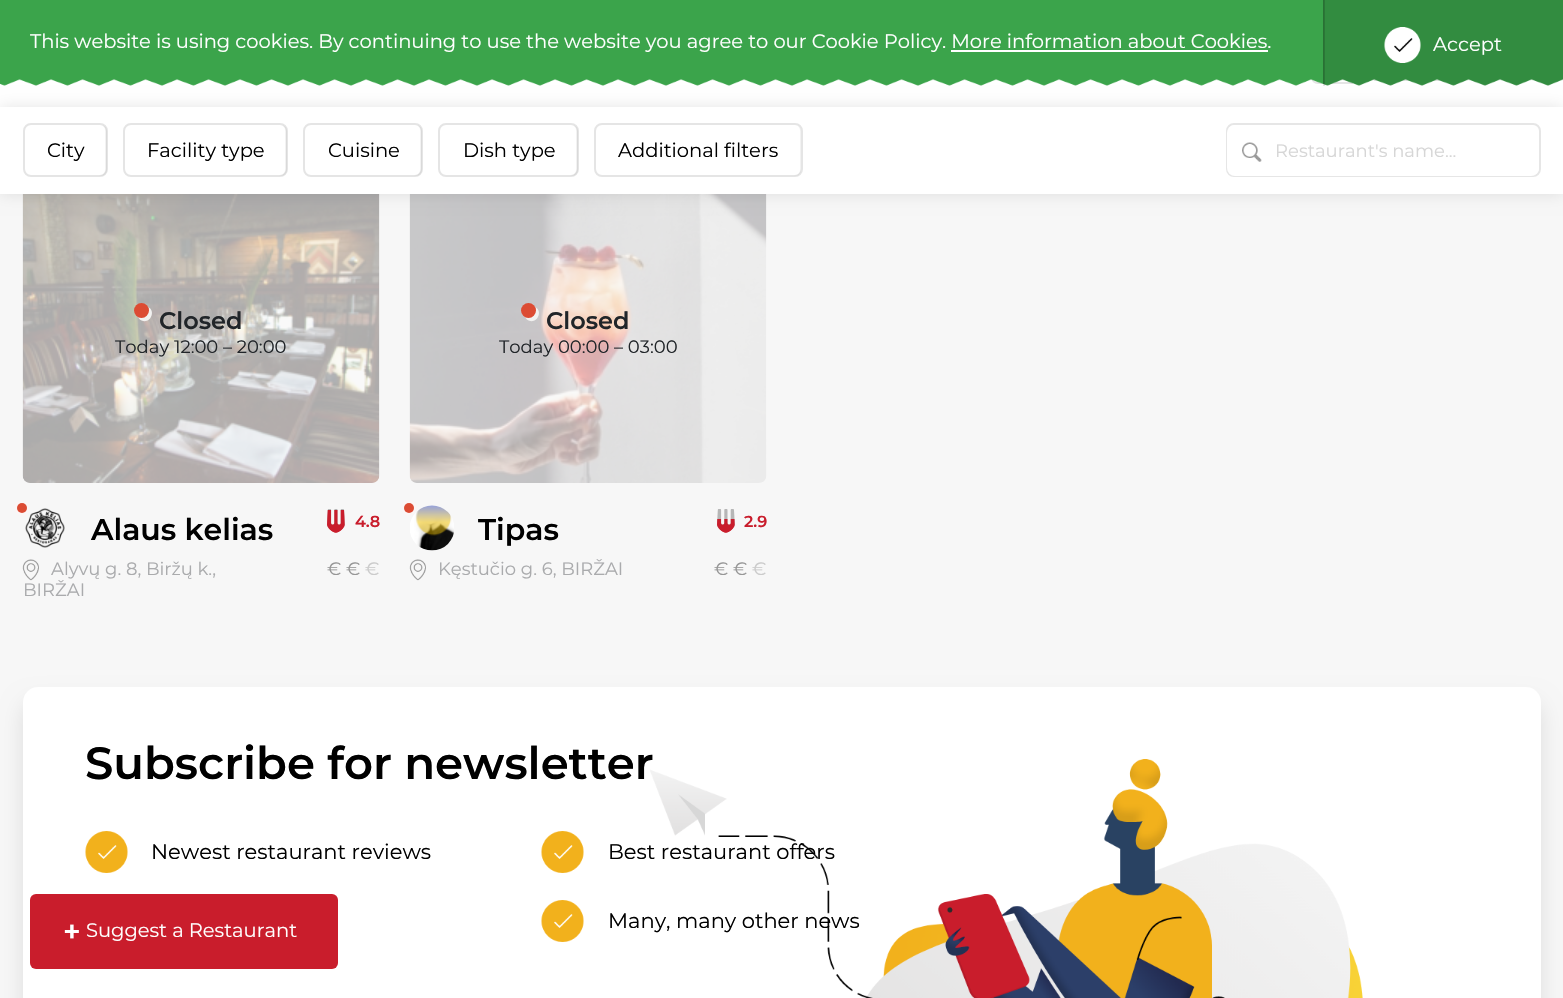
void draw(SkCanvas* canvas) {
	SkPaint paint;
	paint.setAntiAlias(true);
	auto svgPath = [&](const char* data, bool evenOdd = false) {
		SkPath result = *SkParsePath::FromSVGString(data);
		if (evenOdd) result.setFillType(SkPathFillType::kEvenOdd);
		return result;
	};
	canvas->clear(0xfff7f7f7);
	paint.setColor(0xffffffff);
	canvas->drawRect(SkRect::MakeXYWH(0, 79, 1563, 28), paint);
	canvas->drawImageRect(SkImages::DeferredFromEncodedData(SkData::MakeFromFileName("img4.png")), SkRect::MakeXYWH(22, 194, 358, 289), SkSamplingOptions());
	canvas->drawImageRect(SkImages::DeferredFromEncodedData(SkData::MakeFromFileName("img9.png")), SkRect::MakeXYWH(409, 194, 358, 289), SkSamplingOptions());
	paint.setColor(0x1a000000);
	paint.setMaskFilter(SkMaskFilter::MakeBlur(kNormal_SkBlurStyle, 7.5));
	canvas->drawRect(SkRect::MakeXYWH(0, 107, 1563, 87), paint);
	paint.setMaskFilter(nullptr);
	paint.setColor(0xffe5e5e5);
	canvas->drawPath(svgPath("M1318 26H1353V84H1318C1314 84 1311 81 1311 76V33C1311 29 1314 26 1318 26ZM1318 27H1353V82H1318C1315 82 1312 80 1312 76V33C1312 30 1315 27 1318 27Z", true), paint);
	paint.setColor(0xffe6e6e6);
	canvas->drawRect(SkRect::MakeXYWH(1368, 79, 6, 1), paint);
	canvas->drawPath(svgPath("M1374 26H1449C1453 26 1456 29 1456 33V74C1456 78 1453 81 1449 81H1374ZM1374 27H1449C1452 27 1455 30 1455 33V74C1455 77 1452 80 1449 80H1374Z", true), paint);
	canvas->drawImageRect(SkImages::DeferredFromEncodedData(SkData::MakeFromFileName("img1.png")), SkRect::MakeXYWH(0, 0, 1563, 86), SkSamplingOptions());
	SkFont f1(fontMgr->matchFamilyStyle("Montserrat", SkFontStyle::Normal()), 19.5);
	f1.setSubpixel(true);
	paint.setColor(0xffffffff);
	canvas->drawString("This website is using cookies. By continuing to use the website you agree to our Cookie Policy. More information about Cookies.", 30, 48, f1, paint);
	canvas->drawRect(SkRect::MakeXYWH(951, 50, 317, 2), paint);
	paint.setColor(0x1a000000);
	canvas->drawRect(SkRect::MakeXYWH(1323, 0, 2, 86), paint);
	canvas->drawImageRect(SkImages::DeferredFromEncodedData(SkData::MakeFromFileName("img2.png")), SkRect::MakeXYWH(1384, 27, 37, 36), SkSamplingOptions());
	paint.setColor(0xffffffff);
	canvas->drawString("Accept", 1433, 51, f1, paint);
	canvas->drawRect(SkRect::MakeXYWH(0, 107, 1563, 87), paint);
	paint.setColor(0xfff2f2f2);
	canvas->drawPath(svgPath("M99 176H101C104 176 107 173 107 170V131C107 128 105 126 102 125C104 126 105 128 105 130V170C105 173 102 176 99 176Z"), paint);
	paint.setStroke(true);
	paint.setStrokeWidth(2);
	paint.setColor(0x1a000000);
	canvas->drawRoundRect(SkRect::MakeXYWH(24, 124, 83, 52), 7, 7, paint);
	paint.setStroke(false);
	paint.setColor(0xff000000);
	canvas->drawString("City", 47, 157, f1, paint);
	paint.setColor(0xfff2f2f2);
	canvas->drawPath(svgPath("M279 176H281C284 176 287 173 287 170V131C287 128 285 126 282 125C284 126 285 128 285 130V170C285 173 282 176 279 176Z"), paint);
	paint.setStroke(true);
	paint.setColor(0x1a000000);
	canvas->drawRoundRect(SkRect::MakeXYWH(124, 124, 163, 52), 7, 7, paint);
	paint.setStroke(false);
	paint.setColor(0xff000000);
	canvas->drawString("Facility type", 147, 157, f1, paint);
	paint.setColor(0xfff2f2f2);
	canvas->drawPath(svgPath("M414 176H416C419 176 422 173 422 170V131C422 128 420 126 417 125C419 126 420 128 420 130V170C420 173 417 176 414 176Z"), paint);
	paint.setStroke(true);
	paint.setColor(0x1a000000);
	canvas->drawRoundRect(SkRect::MakeXYWH(304, 124, 118, 52), 7, 7, paint);
	paint.setStroke(false);
	paint.setColor(0xff000000);
	canvas->drawString("Cuisine", 328, 157, f1, paint);
	paint.setColor(0xfff2f2f2);
	canvas->drawPath(svgPath("M570 176H572C575 176 578 173 578 170V131C578 128 576 126 573 125C575 126 576 128 576 130V170C576 173 573 176 570 176Z"), paint);
	paint.setStroke(true);
	paint.setColor(0x1a000000);
	canvas->drawRoundRect(SkRect::MakeXYWH(439, 124, 139, 52), 7, 7, paint);
	paint.setStroke(false);
	paint.setColor(0xff000000);
	canvas->drawString("Dish type", 463, 157, f1, paint);
	paint.setColor(0xfff2f2f2);
	canvas->drawPath(svgPath("M794 176H795C798 176 801 173 801 170V131C801 129 800 127 798 126C799 127 800 129 800 130V170C800 173 797 176 794 176Z"), paint);
	paint.setStroke(true);
	paint.setColor(0x1a000000);
	canvas->drawRoundRect(SkRect::MakeXYWH(595, 124, 207, 52), 7, 7, paint);
	paint.setStroke(false);
	paint.setColor(0xff000000);
	canvas->drawString("Additional filters", 618, 157, f1, paint);
	paint.setStroke(true);
	paint.setColor(0xffe6e6e6);
	canvas->drawRoundRect(SkRect::MakeXYWH(1227, 124, 313, 52), 7, 7, paint);
	paint.setStroke(false);
	paint.setColor(0xffffffff);
	canvas->drawRoundRect(SkRect::MakeXYWH(1227, 125, 312, 51), 8, 8, paint);
	canvas->drawImageRect(SkImages::DeferredFromEncodedData(SkData::MakeFromFileName("img3.png")), SkRect::MakeXYWH(1242, 142, 20, 20), SkSamplingOptions());
	SkFont f2(fontMgr->matchFamilyStyle("Montserrat", SkFontStyle::Normal()), 18);
	f2.setSubpixel(true);
	paint.setColor(0xffd6d6d6);
	canvas->drawString("Restaurant's name...", 1275, 157, f2, paint);
	paint.setColor(0xfff2f1f0);
	canvas->drawPath(svgPath("M137.5 316.5C138.5 318 139.5 319.5 141.5 320.5C150 324.5 156.5 311 148 307C150.5 313 143.5 319.5 137.5 316.5Z"), paint);
	paint.setColor(0xffdc4b33);
	canvas->drawCircle(141.5, 310.5, 7.5, paint);
	SkFont f3(fontMgr->matchFamilyStyle("Montserrat", SkFontStyle(600, SkFontStyle::kNormal_Width, SkFontStyle::kUpright_Slant)), 24);
	f3.setSubpixel(true);
	paint.setColor(0xff212529);
	canvas->drawString("Closed", 159, 329, f3, paint);
	canvas->drawString("Today 12:00 – 20:00", 115, 353, f2, paint);
	canvas->drawImageRect(SkImages::DeferredFromEncodedData(SkData::MakeFromFileName("img5.png")), SkRect::MakeXYWH(25, 508, 40, 40), SkSamplingOptions());
	paint.setColor(0xfffbf6f6);
	canvas->drawCircle(22, 508, 8, paint);
	paint.setColor(0xffdc4b33);
	canvas->drawCircle(22, 508, 5, paint);
	SkFont f4(fontMgr->matchFamilyStyle("Montserrat", SkFontStyle(600, SkFontStyle::kNormal_Width, SkFontStyle::kUpright_Slant)), 30);
	f4.setSubpixel(true);
	paint.setColor(0xff000000);
	canvas->drawString("Alaus kelias", 91, 540, f4, paint);
	canvas->drawImageRect(SkImages::DeferredFromEncodedData(SkData::MakeFromFileName("img6.png")), SkRect::MakeXYWH(327, 509, 18, 24), SkSamplingOptions());
	canvas->drawImageRect(SkImages::DeferredFromEncodedData(SkData::MakeFromFileName("img7.png")), SkRect::MakeXYWH(327, 510, 18, 23), SkSamplingOptions());
	SkFont f5(fontMgr->matchFamilyStyle("Montserrat", SkFontStyle(600, SkFontStyle::kNormal_Width, SkFontStyle::kUpright_Slant)), 16);
	f5.setSubpixel(true);
	paint.setColor(0xffc91d2c);
	canvas->drawString("4.8", 355, 527, f5, paint);
	canvas->drawImageRect(SkImages::DeferredFromEncodedData(SkData::MakeFromFileName("img8.png")), SkRect::MakeXYWH(22, 559, 17, 22), SkSamplingOptions());
	paint.setColor(0xffaaabad);
	canvas->drawString("Alyvų g. 8, Biržų k.,", 51, 575, f2, paint);
	canvas->drawString("BIRŽAI", 23, 596, f2, paint);
	paint.setColor(0xff969696);
	canvas->drawString("€ €", 327, 575, f2, paint);
	paint.setColor(0xffcbcbcb);
	canvas->drawString("€", 365, 575, f2, paint);
	paint.setColor(0xfff2f1f0);
	canvas->drawPath(svgPath("M524.5 316.5C525.5 318 526.5 319.5 528.5 320.5C537 324.5 543.5 311 535 307C537.5 313 530.5 319.5 524.5 316.5Z"), paint);
	paint.setColor(0xffdc4b33);
	canvas->drawCircle(528.5, 310.5, 7.5, paint);
	paint.setColor(0xff212529);
	canvas->drawString("Closed", 546, 329, f3, paint);
	canvas->drawString("Today 00:00 – 03:00", 499, 353, f2, paint);
	canvas->drawImageRect(SkImages::DeferredFromEncodedData(SkData::MakeFromFileName("img10.png")), SkRect::MakeXYWH(410, 505, 44, 46), SkSamplingOptions());
	paint.setColor(0xfffbf6f6);
	canvas->drawCircle(409, 508, 8, paint);
	paint.setColor(0xffdc4b33);
	canvas->drawCircle(409, 508, 5, paint);
	paint.setColor(0xff000000);
	canvas->drawString("Tipas", 478, 540, f4, paint);
	canvas->drawImageRect(SkImages::DeferredFromEncodedData(SkData::MakeFromFileName("img6.png")), SkRect::MakeXYWH(717, 509, 18, 24), SkSamplingOptions());
	paint.setColor(0xffc91d2c);
	canvas->drawString("2.9", 744, 527, f5, paint);
	canvas->drawImageRect(SkImages::DeferredFromEncodedData(SkData::MakeFromFileName("img11.png")), SkRect::MakeXYWH(717, 519, 18, 14), SkSamplingOptions());
	canvas->drawImageRect(SkImages::DeferredFromEncodedData(SkData::MakeFromFileName("img8.png")), SkRect::MakeXYWH(409, 559, 17, 22), SkSamplingOptions());
	paint.setColor(0xffaaabad);
	canvas->drawString("Kęstučio g. 6, BIRŽAI", 438, 575, f2, paint);
	paint.setColor(0xff969696);
	canvas->drawString("€ €", 714, 575, f2, paint);
	paint.setColor(0xffcbcbcb);
	canvas->drawString("€", 752, 575, f2, paint);
	paint.setColor(0x1a000000);
	paint.setMaskFilter(SkMaskFilter::MakeBlur(kNormal_SkBlurStyle, 11));
	canvas->drawRoundRect(SkRect::MakeXYWH(23, 702, 1518, 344), 15, 15, paint);
	paint.setMaskFilter(nullptr);
	paint.setColor(0xffffffff);
	canvas->drawRoundRect(SkRect::MakeXYWH(23, 687, 1518, 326), 15, 15, paint);
	canvas->drawImageRect(SkImages::DeferredFromEncodedData(SkData::MakeFromFileName("img12.png")), SkRect::MakeXYWH(650, 759, 713, 239), SkSamplingOptions());
	SkFont f6(fontMgr->matchFamilyStyle("Montserrat", SkFontStyle(600, SkFontStyle::kNormal_Width, SkFontStyle::kUpright_Slant)), 45);
	f6.setSubpixel(true);
	paint.setColor(0xff000000);
	canvas->drawString("Subscribe for newsletter", 85, 779, f6, paint);
	canvas->drawImageRect(SkImages::DeferredFromEncodedData(SkData::MakeFromFileName("img13.png")), SkRect::MakeXYWH(85, 831, 43, 42), SkSamplingOptions());
	SkFont f7(fontMgr->matchFamilyStyle("Montserrat", SkFontStyle::Normal()), 21);
	f7.setSubpixel(true);
	canvas->drawString("Newest restaurant reviews", 151, 859, f7, paint);
	canvas->drawImageRect(SkImages::DeferredFromEncodedData(SkData::MakeFromFileName("img14.png")), SkRect::MakeXYWH(541, 831, 43, 42), SkSamplingOptions());
	canvas->drawString("Best restaurant offers", 608, 859, f7, paint);
	canvas->drawImageRect(SkImages::DeferredFromEncodedData(SkData::MakeFromFileName("img14.png")), SkRect::MakeXYWH(541, 900, 43, 42), SkSamplingOptions());
	canvas->drawString("Many, many other news", 608, 928, f7, paint);
	paint.setColor(0xffc91d2c);
	canvas->drawRoundRect(SkRect::MakeXYWH(30, 894, 308, 75), 6, 6, paint);
	paint.setColor(0xffffffff);
	canvas->drawString("+", 63, 942, f4, paint);
	canvas->drawString("Suggest a Restaurant", 86, 937, f1, paint);
}
